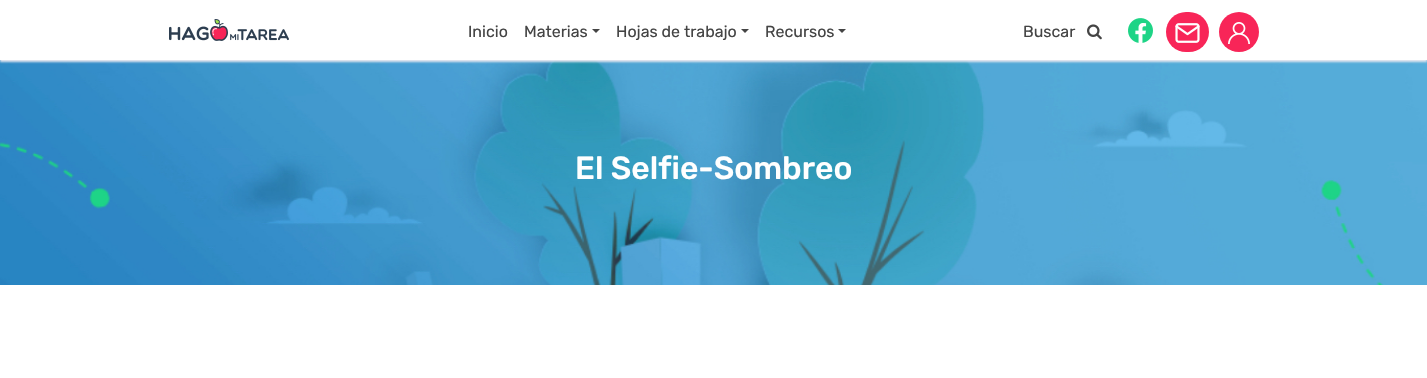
void draw(SkCanvas* canvas) {
	SkPaint paint;
	paint.setAntiAlias(true);
	auto svgPath = [&](const char* data, bool evenOdd = false) {
		SkPath result = *SkParsePath::FromSVGString(data);
		if (evenOdd) result.setFillType(SkPathFillType::kEvenOdd);
		return result;
	};
	canvas->clear(0xffffffff);
	canvas->drawImageRect(SkImages::DeferredFromEncodedData(SkData::MakeFromFileName("img6.png")), SkRect::MakeXYWH(0, 60, 1427, 225), SkSamplingOptions());
	canvas->save();
	canvas->clipRect(SkRect::MakeXYWH(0, 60, 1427, 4));
	paint.setColor(0xffe5e6ef);
	paint.setMaskFilter(SkMaskFilter::MakeBlur(kNormal_SkBlurStyle, 1));
	canvas->drawRect(SkRect::MakeXYWH(0, 2, 1427, 60), paint);
	paint.setMaskFilter(nullptr);
	canvas->restore();
	canvas->drawImageRect(SkImages::DeferredFromEncodedData(SkData::MakeFromFileName("img1.png")), SkRect::MakeXYWH(169, 19, 120, 22), SkSamplingOptions());
	SkFont f1(fontMgr->matchFamilyStyle("Rubik", SkFontStyle::Normal()), 16);
	f1.setSubpixel(true);
	paint.setColor(0xff444444);
	canvas->drawString("Inicio", 468, 37, f1, paint);
	canvas->drawString("Materias", 524, 37, f1, paint);
	canvas->drawPath(svgPath("M592 29H600L596 33Z"), paint);
	canvas->drawString("Hojas de trabajo", 616, 37, f1, paint);
	canvas->drawPath(svgPath("M741 29H749L745 33Z"), paint);
	canvas->drawString("Recursos", 765, 37, f1, paint);
	canvas->drawPath(svgPath("M838 29H846L842 33Z"), paint);
	canvas->drawString("Buscar", 1023, 37, f1, paint);
	canvas->drawImageRect(SkImages::DeferredFromEncodedData(SkData::MakeFromFileName("img2.png")), SkRect::MakeXYWH(1087, 24, 15, 16), SkSamplingOptions());
	canvas->drawImageRect(SkImages::DeferredFromEncodedData(SkData::MakeFromFileName("img3.png")), SkRect::MakeXYWH(1128, 18, 25, 25), SkSamplingOptions());
	paint.setColor(0xfff82558);
	canvas->drawRoundRect(SkRect::MakeXYWH(1166, 12, 43, 40), 20, 20, paint);
	canvas->drawImageRect(SkImages::DeferredFromEncodedData(SkData::MakeFromFileName("img4.png")), SkRect::MakeXYWH(1175, 23, 25, 20), SkSamplingOptions());
	canvas->drawCircle(1239, 32, 20, paint);
	canvas->drawImageRect(SkImages::DeferredFromEncodedData(SkData::MakeFromFileName("img5.png")), SkRect::MakeXYWH(1228, 22, 22, 22), SkSamplingOptions());
	SkFont f2(fontMgr->matchFamilyStyle("Rubik", SkFontStyle(500, SkFontStyle::kNormal_Width, SkFontStyle::kUpright_Slant)), 32);
	f2.setSubpixel(true);
	paint.setColor(0xffffffff);
	canvas->drawString("El Selfie-Sombreo", 575, 179, f2, paint);
}
